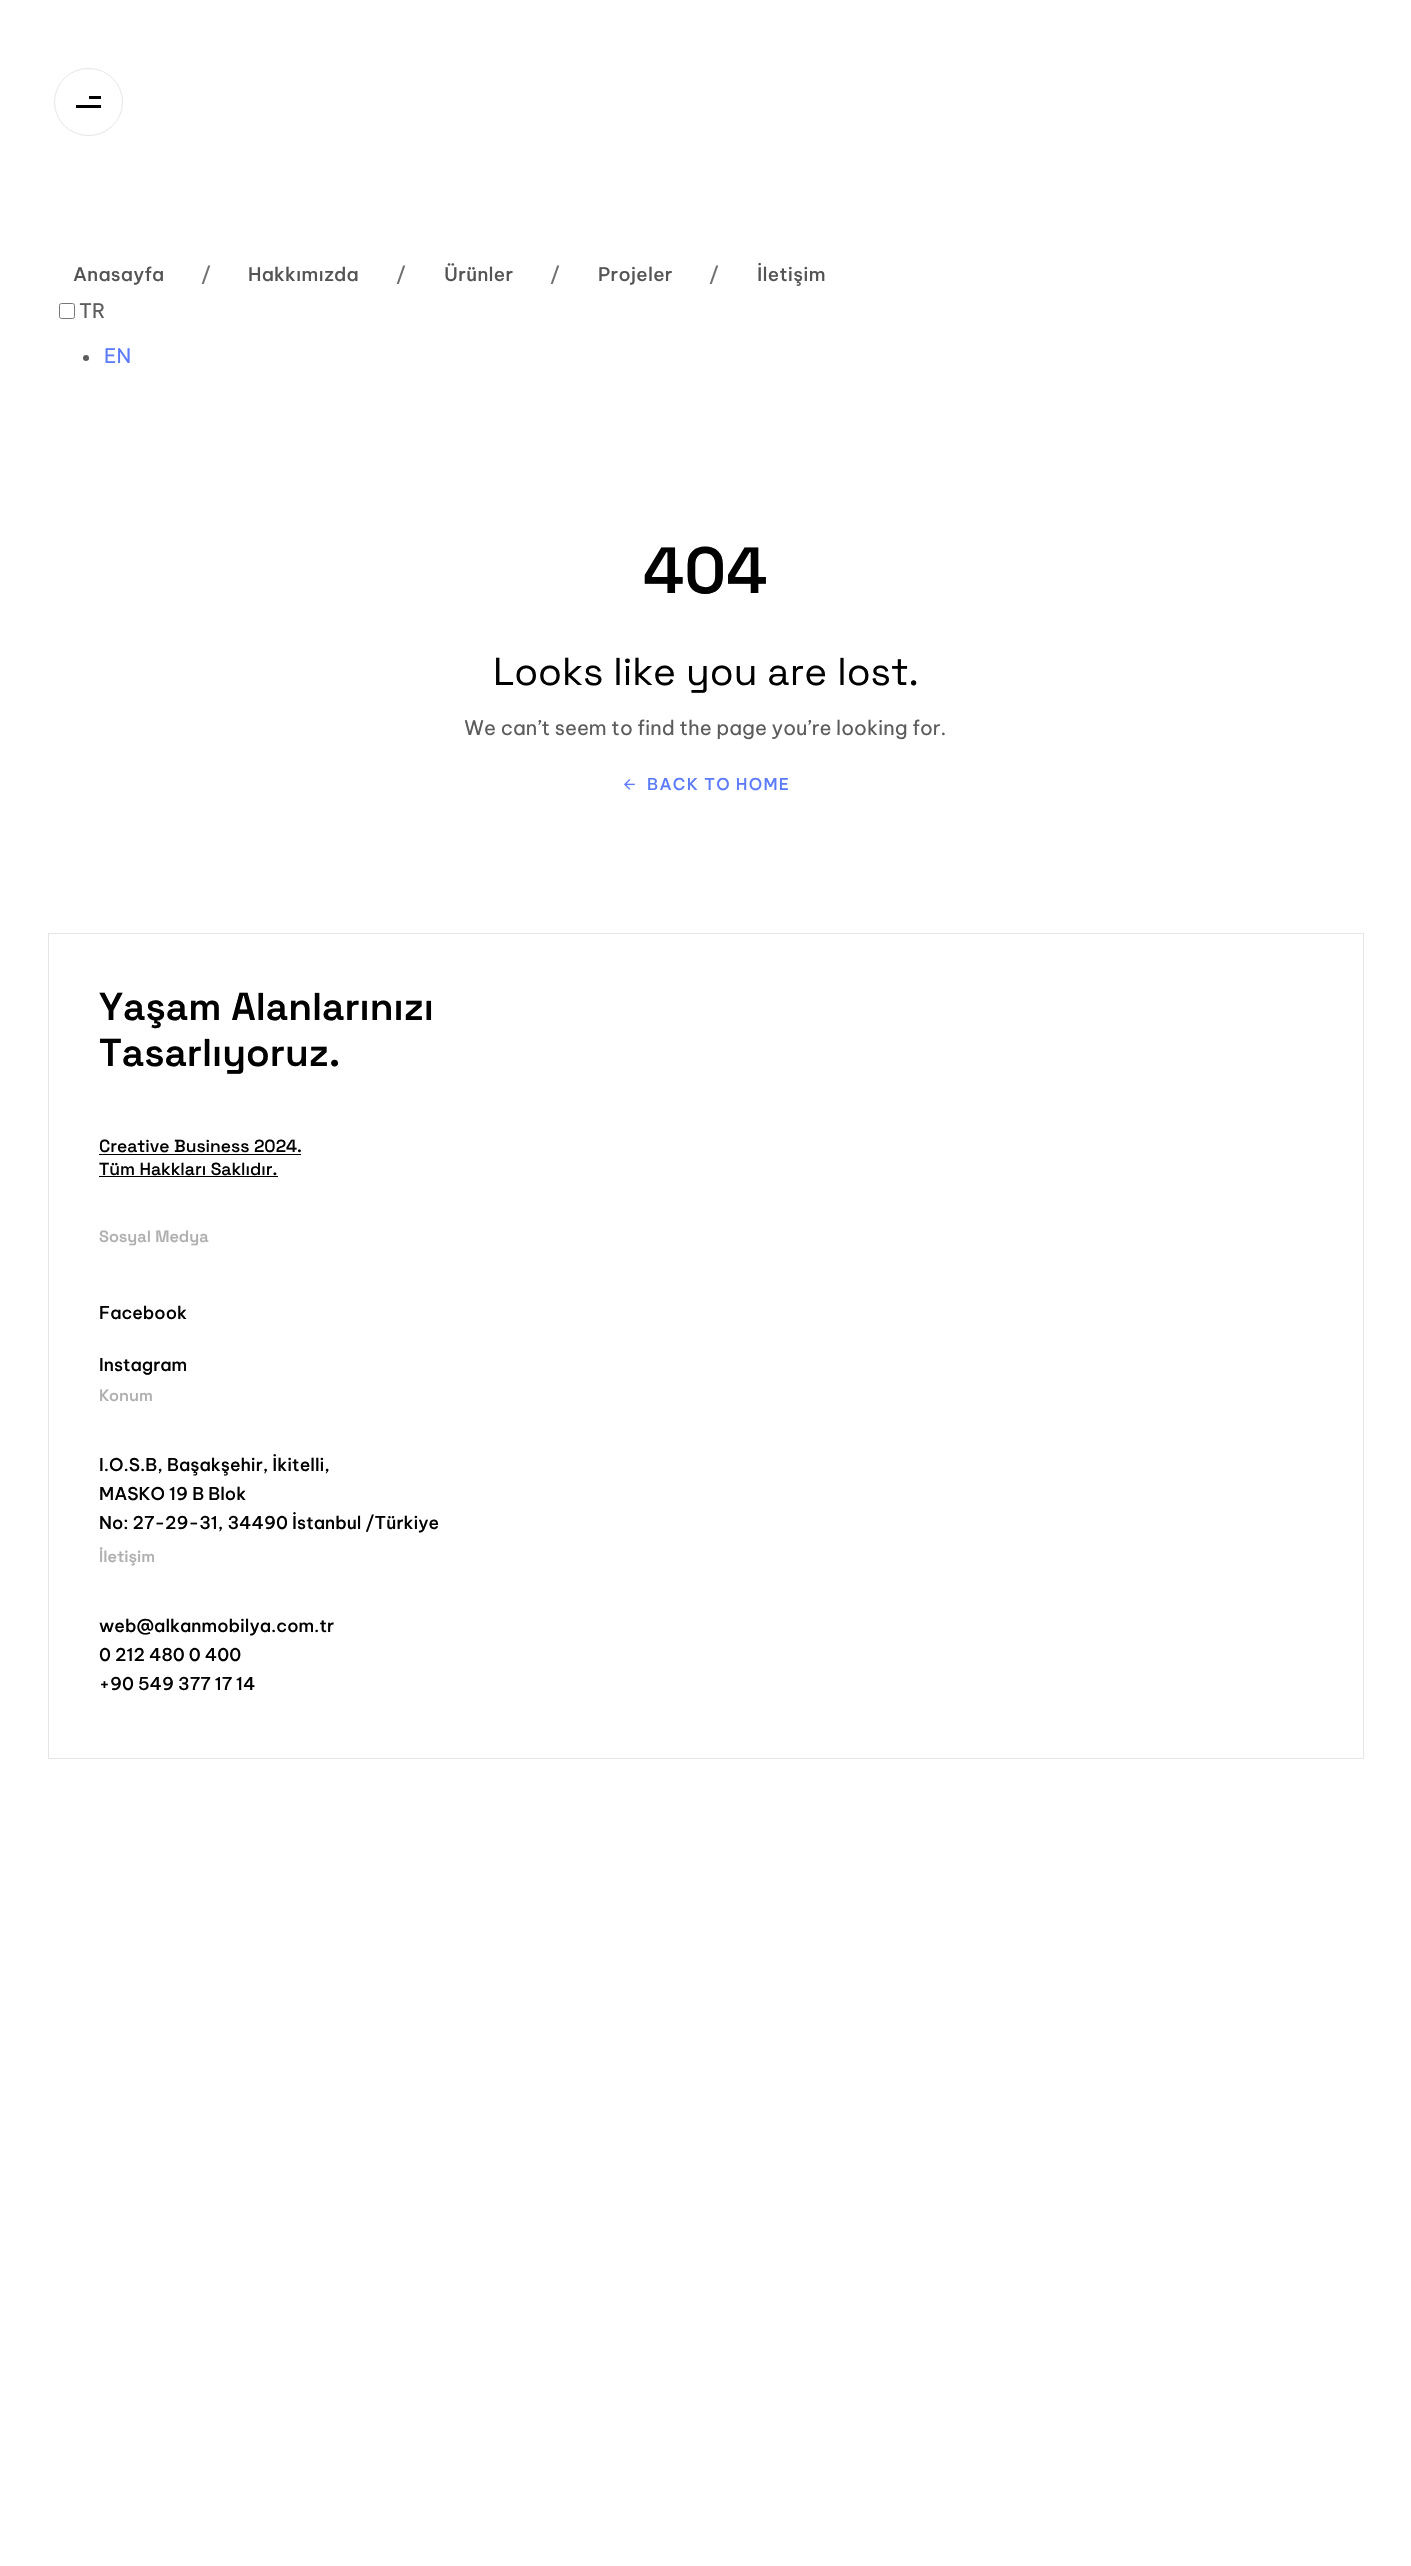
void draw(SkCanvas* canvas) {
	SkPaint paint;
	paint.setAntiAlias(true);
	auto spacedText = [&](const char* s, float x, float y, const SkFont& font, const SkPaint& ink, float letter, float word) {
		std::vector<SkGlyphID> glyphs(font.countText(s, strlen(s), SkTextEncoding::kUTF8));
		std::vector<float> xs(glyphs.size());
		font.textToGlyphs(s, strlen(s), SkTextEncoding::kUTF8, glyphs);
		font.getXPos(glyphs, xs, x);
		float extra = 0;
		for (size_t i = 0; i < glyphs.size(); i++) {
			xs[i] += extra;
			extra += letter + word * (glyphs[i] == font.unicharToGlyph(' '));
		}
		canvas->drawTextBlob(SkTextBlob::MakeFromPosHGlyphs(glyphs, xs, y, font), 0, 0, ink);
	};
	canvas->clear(0xffffffff);
	paint.setStroke(true);
	paint.setStrokeWidth(1);
	paint.setColor(0xffe6e6e6);
	canvas->drawRoundRect(SkRect::MakeXYWH(54.5, 68.5, 68, 67), 33.5, 33.5, paint);
	paint.setStroke(false);
	paint.setColor(0xff000000);
	canvas->drawRect(SkRect::MakeXYWH(89, 96, 12, 3), paint);
	canvas->drawRect(SkRect::MakeXYWH(76, 105, 25, 3), paint);
	SkFont f1(fontMgr->matchFamilyStyle("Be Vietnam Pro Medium", SkFontStyle(500, SkFontStyle::kNormal_Width, SkFontStyle::kUpright_Slant)), 18.75);
	f1.setSubpixel(true);
	paint.setColor(0xff545454);
	spacedText("Anasayfa", 73, 281, f1, paint, 0.25, 0);
	paint.setColor(0xff707070);
	spacedText("/", 201, 281, f1, paint, 0.25, 0);
	paint.setColor(0xff545454);
	spacedText("Hakkımızda", 248, 281, f1, paint, 0.25, 0);
	paint.setColor(0xff707070);
	spacedText("/", 396, 281, f1, paint, 0.25, 0);
	paint.setColor(0xff545454);
	spacedText("Ürünler", 444, 281, f1, paint, 0.25, 0);
	paint.setColor(0xff707070);
	spacedText("/", 550, 281, f1, paint, 0.25, 0);
	paint.setColor(0xff545454);
	spacedText("Projeler", 598, 281, f1, paint, 0.25, 0);
	paint.setColor(0xff707070);
	spacedText("/", 709, 281, f1, paint, 0.25, 0);
	paint.setColor(0xff545454);
	spacedText("İletişim", 757, 281, f1, paint, 0.25, 0);
	paint.setStroke(true);
	paint.setColor(0xff767676);
	canvas->drawRoundRect(SkRect::MakeXYWH(59.5, 303.5, 15, 15), 2, 2, paint);
	SkFont f2(fontMgr->matchFamilyStyle("Be Vietnam Pro", SkFontStyle::Normal()), 20);
	f2.setSubpixel(true);
	paint.setStroke(false);
	paint.setColor(0xff5c5c5c);
	canvas->drawString("TR", 79, 318, f2, paint);
	canvas->drawCircle(86, 358, 3, paint);
	paint.setColor(0xff5b7bfb);
	canvas->drawString("EN", 104, 363, f2, paint);
	SkFont f3(fontMgr->matchFamilyStyle("Space Grotesk", SkFontStyle(600, SkFontStyle::kNormal_Width, SkFontStyle::kUpright_Slant)), 65);
	f3.setSubpixel(true);
	paint.setColor(0xff000000);
	canvas->drawString("404", 643, 593, f3, paint);
	SkFont f4(fontMgr->matchFamilyStyle("Space Grotesk", SkFontStyle::Normal()), 38.75);
	f4.setSubpixel(true);
	canvas->drawString("Looks like you are lost.", 493, 685, f4, paint);
	paint.setColor(0xff5c5c5c);
	canvas->drawString("We can’t seem to find the page you’re looking for.", 464, 735, f2, paint);
	canvas->drawImageRect(SkImages::DeferredFromEncodedData(SkData::MakeFromFileName("img1.png")), SkRect::MakeXYWH(624, 779, 11, 11), SkSamplingOptions());
	SkFont f5(fontMgr->matchFamilyStyle("Be Vietnam Pro Medium", SkFontStyle(500, SkFontStyle::kNormal_Width, SkFontStyle::kUpright_Slant)), 16.25);
	f5.setSubpixel(true);
	paint.setColor(0xff5b7bfb);
	spacedText("BACK TO HOME", 647, 790, f5, paint, 1.25, 0);
	paint.setStroke(true);
	paint.setColor(0xffe5e5e5);
	canvas->drawRect(SkRect::MakeXYWH(48.5, 933.5, 1315, 825), paint);
	SkFont f6(fontMgr->matchFamilyStyle("Space Grotesk", SkFontStyle(600, SkFontStyle::kNormal_Width, SkFontStyle::kUpright_Slant)), 38.75);
	f6.setSubpixel(true);
	paint.setStroke(false);
	paint.setColor(0xff000000);
	canvas->drawString("Yaşam Alanlarınızı", 99, 1020, f6, paint);
	canvas->drawString("Tasarlıyoruz.", 99, 1066, f6, paint);
	SkFont f7(fontMgr->matchFamilyStyle("Space Grotesk", SkFontStyle(500, SkFontStyle::kNormal_Width, SkFontStyle::kUpright_Slant)), 17.5);
	f7.setSubpixel(true);
	canvas->drawString("Creative Business 2024.", 99, 1152, f7, paint);
	canvas->drawRect(SkRect::MakeXYWH(99, 1154, 202, 1), paint);
	canvas->drawString("Tüm Hakkları Saklıdır.", 99, 1175, f7, paint);
	canvas->drawRect(SkRect::MakeXYWH(99, 1176, 179, 1), paint);
	SkFont f8(fontMgr->matchFamilyStyle("Space Grotesk", SkFontStyle(600, SkFontStyle::kNormal_Width, SkFontStyle::kUpright_Slant)), 16.25);
	f8.setSubpixel(true);
	paint.setColor(0xffb0b0b0);
	canvas->drawString("Sosyal Medya", 99, 1242, f8, paint);
	SkFont f9(fontMgr->matchFamilyStyle("Be Vietnam Pro Medium", SkFontStyle(500, SkFontStyle::kNormal_Width, SkFontStyle::kUpright_Slant)), 17.5);
	f9.setSubpixel(true);
	paint.setColor(0xff000000);
	canvas->drawString("Facebook", 99, 1319, f9, paint);
	canvas->drawString("Instagram", 99, 1371, f9, paint);
	paint.setColor(0xffb0b0b0);
	canvas->drawString("Konum", 99, 1401, f8, paint);
	paint.setColor(0xff000000);
	canvas->drawString("I.O.S.B, Başakşehir, İkitelli,", 99, 1471, f9, paint);
	canvas->drawString("MASKO 19 B Blok", 99, 1500, f9, paint);
	canvas->drawString("No: 27-29-31, 34490 İstanbul /Türkiye", 99, 1529, f9, paint);
	paint.setColor(0xffb0b0b0);
	canvas->drawString("İletişim", 99, 1562, f8, paint);
	paint.setColor(0xff000000);
	canvas->drawString("web@alkanmobilya.com.tr", 99, 1632, f9, paint);
	canvas->drawString("0 212 480 0 400", 99, 1661, f9, paint);
	canvas->drawString("+90 549 377 17 14", 99, 1690, f9, paint);
}
